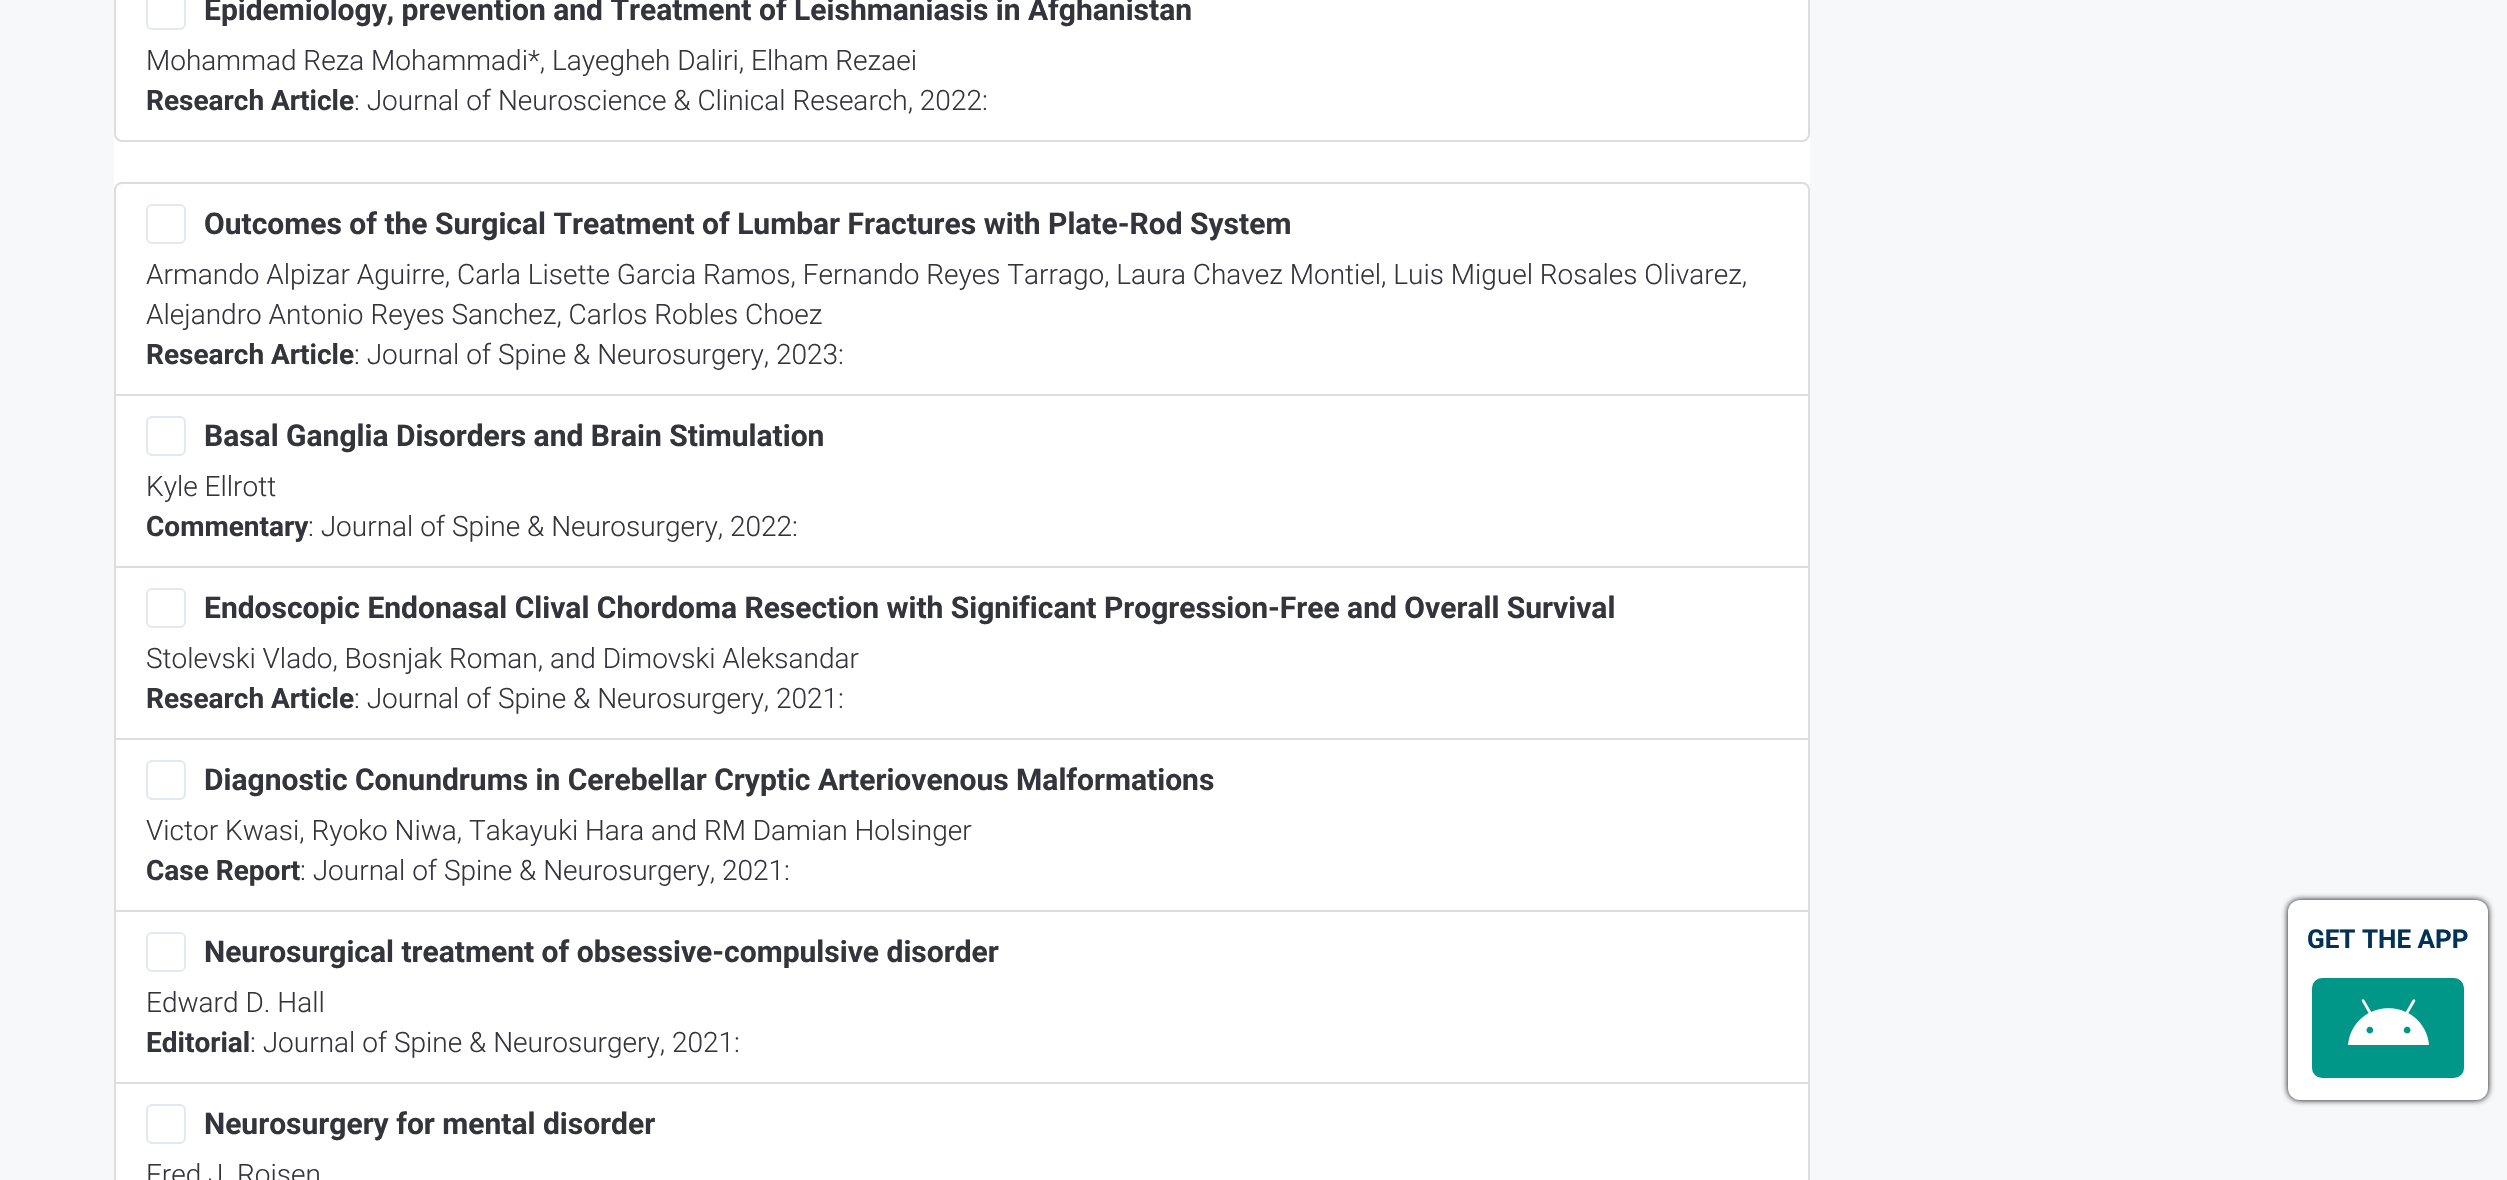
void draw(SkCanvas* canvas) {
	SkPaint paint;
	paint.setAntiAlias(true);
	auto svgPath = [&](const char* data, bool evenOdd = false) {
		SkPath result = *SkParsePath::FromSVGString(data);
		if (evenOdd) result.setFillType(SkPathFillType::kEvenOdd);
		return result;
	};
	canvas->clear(0xfff7f8fa);
	paint.setColor(0xffffffff);
	canvas->drawRect(SkRect::MakeXYWH(114, 0, 1696, 394), paint);
	paint.setStroke(true);
	paint.setStrokeWidth(2);
	paint.setColor(0xffdddddd);
	canvas->drawPath(svgPath("M115-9H1809V134C1809 138 1806 141 1802 141H122C118 141 115 138 115 134Z"), paint);
	paint.setColor(0xffe4e8f3);
	canvas->drawRoundRect(SkRect::MakeXYWH(147, -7, 38, 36), 5, 5, paint);
	SkFont f1(fontMgr->matchFamilyStyle("Roboto", SkFontStyle::Bold()), 30);
	f1.setSubpixel(true);
	paint.setStroke(false);
	paint.setColor(0xff34343c);
	canvas->drawString("Epidemiology, prevention and Treatment of Leishmaniasis in Afghanistan", 204, 20, f1, paint);
	SkFont f2(fontMgr->matchFamilyStyle("Roboto", SkFontStyle(300, SkFontStyle::kNormal_Width, SkFontStyle::kUpright_Slant)), 28);
	f2.setSubpixel(true);
	canvas->drawString("Mohammad Reza Mohammadi*, Layegheh Daliri, Elham Rezaei", 146, 70, f2, paint);
	SkFont f3(fontMgr->matchFamilyStyle("Roboto", SkFontStyle::Bold()), 28);
	f3.setSubpixel(true);
	canvas->drawString("Research Article", 146, 110, f3, paint);
	canvas->drawString(": Journal of Neuroscience & Clinical Research, 2022:", 354, 110, f2, paint);
	paint.setStroke(true);
	paint.setColor(0xffdddddd);
	canvas->drawPath(svgPath("M122 183H1802C1806 183 1809 186 1809 190V395H115V190C115 186 118 183 122 183Z"), paint);
	paint.setColor(0xffe4e8f3);
	canvas->drawRoundRect(SkRect::MakeXYWH(147, 205, 38, 38), 5, 5, paint);
	paint.setStroke(false);
	paint.setColor(0xff34343c);
	canvas->drawString("Outcomes of the Surgical Treatment of Lumbar Fractures with Plate-Rod System", 204, 234, f1, paint);
	canvas->drawString("Armando Alpizar Aguirre, Carla Lisette Garcia Ramos, Fernando Reyes Tarrago, Laura Chavez Montiel, Luis Miguel Rosales Olivarez,", 146, 284, f2, paint);
	canvas->drawString("Alejandro Antonio Reyes Sanchez, Carlos Robles Choez", 146, 324, f2, paint);
	canvas->drawString("Research Article", 146, 364, f3, paint);
	canvas->drawString(": Journal of Spine & Neurosurgery, 2023:", 354, 364, f2, paint);
	paint.setColor(0xffffffff);
	canvas->drawRect(SkRect::MakeXYWH(115, 395, 1694, 172), paint);
	paint.setStroke(true);
	paint.setColor(0xffdddddd);
	canvas->drawRect(SkRect::MakeXYWH(115, 395, 1694, 172), paint);
	paint.setColor(0xffe4e8f3);
	canvas->drawRoundRect(SkRect::MakeXYWH(147, 417, 38, 38), 5, 5, paint);
	paint.setStroke(false);
	paint.setColor(0xff34343c);
	canvas->drawString("Basal Ganglia Disorders and Brain Stimulation", 204, 446, f1, paint);
	canvas->drawString("Kyle Ellrott", 146, 496, f2, paint);
	canvas->drawString("Commentary", 146, 536, f3, paint);
	canvas->drawString(": Journal of Spine & Neurosurgery, 2022:", 308, 536, f2, paint);
	paint.setColor(0xffffffff);
	canvas->drawRect(SkRect::MakeXYWH(115, 567, 1694, 172), paint);
	paint.setStroke(true);
	paint.setColor(0xffdddddd);
	canvas->drawRect(SkRect::MakeXYWH(115, 567, 1694, 172), paint);
	paint.setColor(0xffe4e8f3);
	canvas->drawRoundRect(SkRect::MakeXYWH(147, 589, 38, 38), 5, 5, paint);
	paint.setStroke(false);
	paint.setColor(0xff34343c);
	canvas->drawString("Endoscopic Endonasal Clival Chordoma Resection with Significant Progression-Free and Overall Survival", 204, 618, f1, paint);
	canvas->drawString("Stolevski Vlado, Bosnjak Roman, and Dimovski Aleksandar", 146, 668, f2, paint);
	canvas->drawString("Research Article", 146, 708, f3, paint);
	canvas->drawString(": Journal of Spine & Neurosurgery, 2021:", 354, 708, f2, paint);
	paint.setColor(0xffffffff);
	canvas->drawRect(SkRect::MakeXYWH(115, 739, 1694, 172), paint);
	paint.setStroke(true);
	paint.setColor(0xffdddddd);
	canvas->drawRect(SkRect::MakeXYWH(115, 739, 1694, 172), paint);
	paint.setColor(0xffe4e8f3);
	canvas->drawRoundRect(SkRect::MakeXYWH(147, 761, 38, 38), 5, 5, paint);
	paint.setStroke(false);
	paint.setColor(0xff34343c);
	canvas->drawString("Diagnostic Conundrums in Cerebellar Cryptic Arteriovenous Malformations", 204, 790, f1, paint);
	canvas->drawString("Victor Kwasi, Ryoko Niwa, Takayuki Hara and RM Damian Holsinger", 146, 840, f2, paint);
	canvas->drawString("Case Report", 146, 880, f3, paint);
	canvas->drawString(": Journal of Spine & Neurosurgery, 2021:", 300, 880, f2, paint);
	paint.setColor(0xffffffff);
	canvas->drawRect(SkRect::MakeXYWH(115, 911, 1694, 172), paint);
	paint.setStroke(true);
	paint.setColor(0xffdddddd);
	canvas->drawRect(SkRect::MakeXYWH(115, 911, 1694, 172), paint);
	paint.setColor(0xffe4e8f3);
	canvas->drawRoundRect(SkRect::MakeXYWH(147, 933, 38, 38), 5, 5, paint);
	paint.setStroke(false);
	paint.setColor(0xff34343c);
	canvas->drawString("Neurosurgical treatment of obsessive-compulsive disorder", 204, 962, f1, paint);
	canvas->drawString("Edward D. Hall", 146, 1012, f2, paint);
	canvas->drawString("Editorial", 146, 1052, f3, paint);
	canvas->drawString(": Journal of Spine & Neurosurgery, 2021:", 250, 1052, f2, paint);
	paint.setColor(0xffffffff);
	canvas->drawRect(SkRect::MakeXYWH(115, 1083, 1694, 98), paint);
	paint.setStroke(true);
	paint.setColor(0xffdddddd);
	canvas->drawRect(SkRect::MakeXYWH(115, 1083, 1694, 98), paint);
	paint.setColor(0xffe4e8f3);
	canvas->drawRoundRect(SkRect::MakeXYWH(147, 1105, 38, 38), 5, 5, paint);
	paint.setStroke(false);
	paint.setColor(0xff34343c);
	canvas->drawString("Neurosurgery for mental disorder", 204, 1134, f1, paint);
	canvas->drawString("Fred J. Roisen", 146, 1184, f2, paint);
	paint.setColor(0xff000000);
	paint.setMaskFilter(SkMaskFilter::MakeBlur(kNormal_SkBlurStyle, 3));
	canvas->drawRoundRect(SkRect::MakeXYWH(2288, 900, 200, 200), 12, 12, paint);
	paint.setMaskFilter(nullptr);
	paint.setColor(0xffffffff);
	canvas->drawRoundRect(SkRect::MakeXYWH(2289, 901, 198, 198), 11, 11, paint);
	paint.setStroke(true);
	canvas->drawRoundRect(SkRect::MakeXYWH(2289, 901, 198, 198), 11, 11, paint);
	SkFont f4(fontMgr->matchFamilyStyle("Roboto", SkFontStyle::Bold()), 26);
	f4.setSubpixel(true);
	paint.setStroke(false);
	paint.setColor(0xff023256);
	canvas->drawString("GET THE APP", 2307, 948, f4, paint);
	paint.setColor(0xff009688);
	canvas->drawRoundRect(SkRect::MakeXYWH(2312, 978, 152, 100), 10, 10, paint);
	canvas->drawImageRect(SkImages::DeferredFromEncodedData(SkData::MakeFromFileName("img1.png")), SkRect::MakeXYWH(2348, 999, 81, 46), SkSamplingOptions());
}
